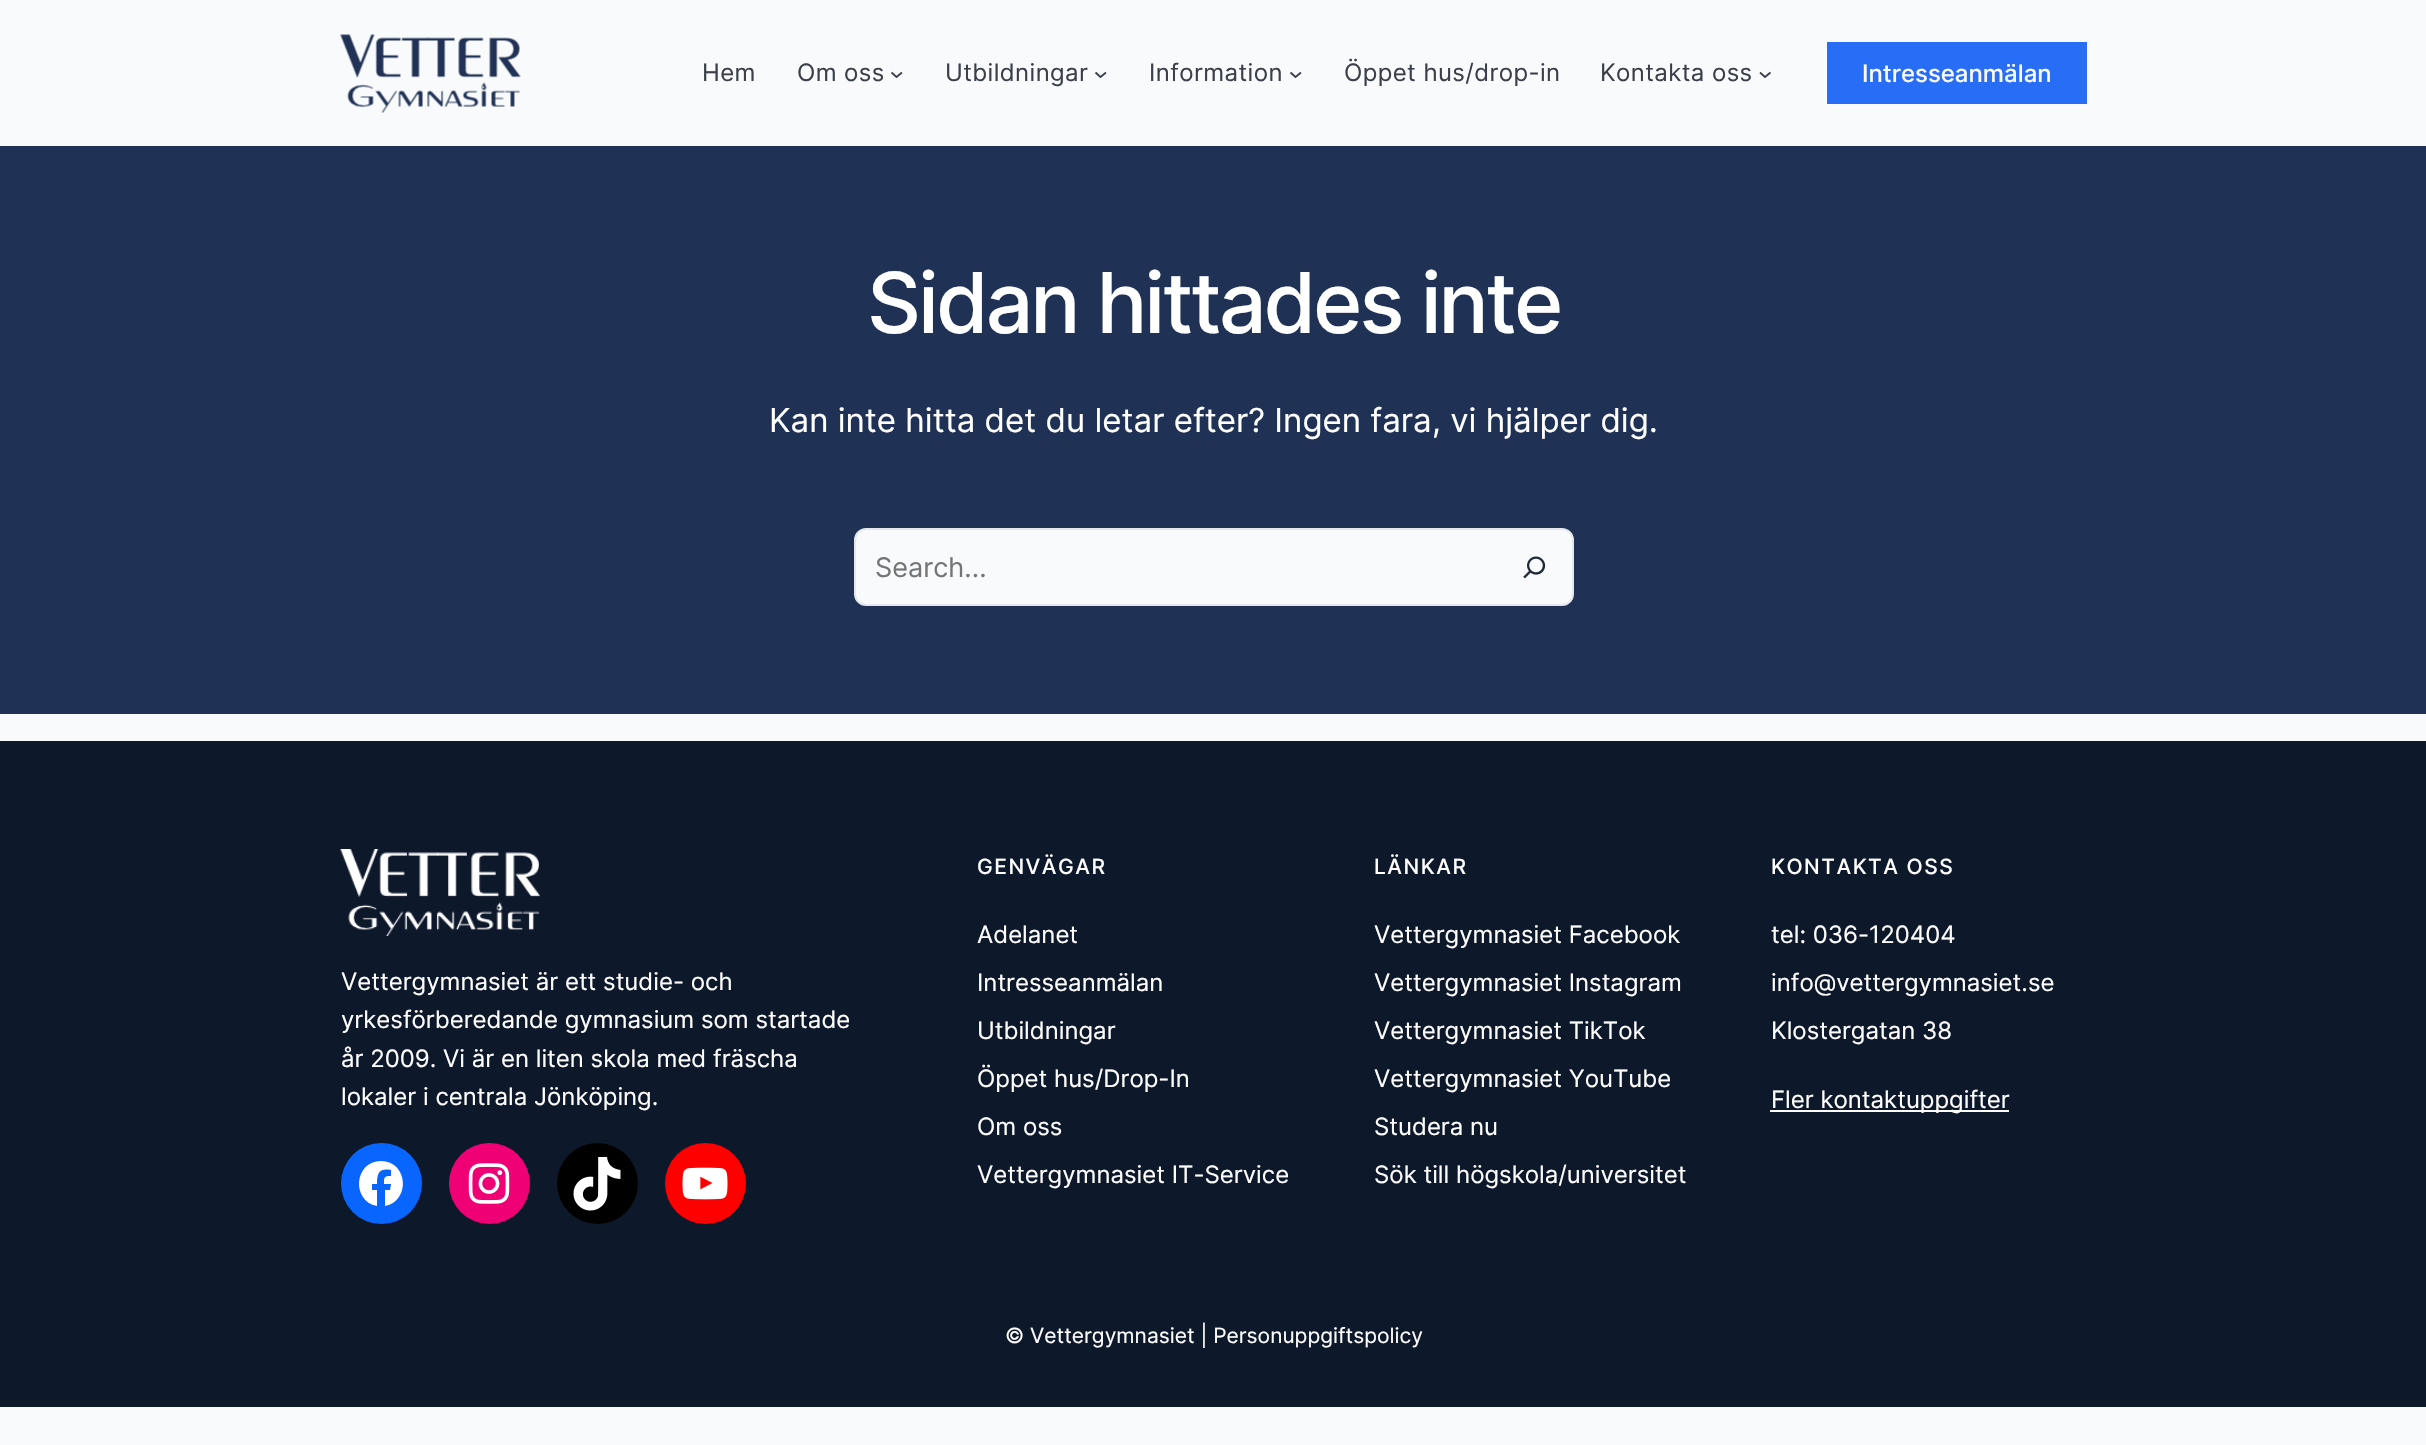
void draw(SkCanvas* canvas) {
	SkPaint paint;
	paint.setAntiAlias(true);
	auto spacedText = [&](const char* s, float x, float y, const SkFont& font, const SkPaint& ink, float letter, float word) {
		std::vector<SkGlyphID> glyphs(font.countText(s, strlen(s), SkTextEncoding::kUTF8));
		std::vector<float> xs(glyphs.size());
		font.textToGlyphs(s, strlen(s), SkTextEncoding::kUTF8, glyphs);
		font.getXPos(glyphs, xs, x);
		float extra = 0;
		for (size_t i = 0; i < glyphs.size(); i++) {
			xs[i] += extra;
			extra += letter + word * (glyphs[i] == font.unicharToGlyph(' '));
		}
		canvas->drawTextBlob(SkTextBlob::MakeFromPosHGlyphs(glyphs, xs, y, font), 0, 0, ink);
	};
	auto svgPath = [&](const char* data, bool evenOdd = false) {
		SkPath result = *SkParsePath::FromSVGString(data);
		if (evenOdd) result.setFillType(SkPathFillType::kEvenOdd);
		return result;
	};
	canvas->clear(0xfff8fafc);
	canvas->drawImageRect(SkImages::DeferredFromEncodedData(SkData::MakeFromFileName("img1.png")), SkRect::MakeXYWH(340, 34, 181, 79), SkSamplingOptions());
	SkFont f1(fontMgr->matchFamilyStyle("Inter", SkFontStyle::Normal()), 24);
	f1.setSubpixel(true);
	paint.setColor(0xff3a3f49);
	spacedText("Hem", 702, 81, f1, paint, 0.4, 0);
	spacedText("Om oss", 797, 81, f1, paint, 0.4, 0);
	paint.setStroke(true);
	paint.setStrokeWidth(1.8);
	canvas->drawPath(svgPath("M891.5 72.5L896.5 77L902 72.5"), paint);
	paint.setStroke(false);
	spacedText("Utbildningar", 945, 81, f1, paint, 0.4, 0);
	paint.setStroke(true);
	canvas->drawPath(svgPath("M1095.5 72.5L1100.5 77L1106 72.5"), paint);
	paint.setStroke(false);
	spacedText("Information", 1149, 81, f1, paint, 0.4, 0);
	paint.setStroke(true);
	canvas->drawPath(svgPath("M1290.5 72.5L1295.5 77L1301 72.5"), paint);
	paint.setStroke(false);
	spacedText("Öppet hus/drop-in", 1344, 81, f1, paint, 0.4, 0);
	spacedText("Kontakta oss", 1600, 81, f1, paint, 0.4, 0);
	paint.setStroke(true);
	canvas->drawPath(svgPath("M1760 72.5L1765 77L1770.5 72.5"), paint);
	paint.setStroke(false);
	paint.setColor(0xff286df6);
	canvas->drawRect(SkRect::MakeXYWH(1827, 42, 260, 62), paint);
	SkFont f2(fontMgr->matchFamilyStyle("Inter", SkFontStyle(500, SkFontStyle::kNormal_Width, SkFontStyle::kUpright_Slant)), 24);
	f2.setSubpixel(true);
	paint.setColor(0xfff8fafc);
	canvas->drawString("Intresseanmälan", 1862, 82, f2, paint);
	paint.setColor(0xff1f3256);
	canvas->drawRect(SkRect::MakeXYWH(0, 146, 2426, 568), paint);
	SkFont f3(fontMgr->matchFamilyStyle("Inter", SkFontStyle(500, SkFontStyle::kNormal_Width, SkFontStyle::kUpright_Slant)), 84);
	f3.setSubpixel(true);
	paint.setColor(0xffffffff);
	spacedText("Sidan hittades inte", 867, 333, f3, paint, -3, 0);
	SkFont f4(fontMgr->matchFamilyStyle("Inter", SkFontStyle::Normal()), 33);
	f4.setSubpixel(true);
	canvas->drawString("Kan inte hitta det du letar efter? Ingen fara, vi hjälper dig.", 769, 432, f4, paint);
	paint.setColor(0xfff8fafc);
	canvas->drawRoundRect(SkRect::MakeXYWH(855, 529, 718, 76), 11, 11, paint);
	paint.setStroke(true);
	paint.setStrokeWidth(2);
	paint.setColor(0xffe5e7eb);
	canvas->drawRoundRect(SkRect::MakeXYWH(855, 529, 718, 76), 11, 11, paint);
	SkFont f5(fontMgr->matchFamilyStyle("Inter", SkFontStyle::Normal()), 27);
	f5.setSubpixel(true);
	paint.setStroke(false);
	paint.setColor(0xff757575);
	canvas->drawString("Search...", 875, 577, f5, paint);
	canvas->drawImageRect(SkImages::DeferredFromEncodedData(SkData::MakeFromFileName("img2.png")), SkRect::MakeXYWH(1523, 556, 23, 23), SkSamplingOptions());
	paint.setColor(0xff0e182b);
	canvas->drawRect(SkRect::MakeXYWH(0, 741, 2426, 666), paint);
	canvas->drawImageRect(SkImages::DeferredFromEncodedData(SkData::MakeFromFileName("img3.png")), SkRect::MakeXYWH(340, 849, 200, 87), SkSamplingOptions());
	paint.setColor(0xffffffff);
	canvas->drawString("Vettergymnasiet är ett studie- och", 341, 990, f1, paint);
	canvas->drawString("yrkesförberedande gymnasium som startade", 341, 1028, f1, paint);
	canvas->drawString("år 2009. Vi är en liten skola med fräscha", 341, 1067, f1, paint);
	canvas->drawString("lokaler i centrala Jönköping.", 341, 1105, f1, paint);
	paint.setColor(0xff0866ff);
	canvas->drawCircle(381.5, 1183.5, 40.5, paint);
	paint.setColor(0xffffffff);
	canvas->drawPath(svgPath("M381 1161C354 1161 351 1201 377 1206V1190H372V1184H377C377 1173 379 1168 391 1170V1176C384 1176 384 1177 384 1184H391L390 1190H385V1206C411 1201 408 1161 381 1161Z"), paint);
	paint.setColor(0xfff00075);
	canvas->drawCircle(489.5, 1183.5, 40.5, paint);
	canvas->drawImageRect(SkImages::DeferredFromEncodedData(SkData::MakeFromFileName("img4.png")), SkRect::MakeXYWH(468, 1163, 42, 41), SkSamplingOptions());
	paint.setColor(0xff000000);
	canvas->drawCircle(597.5, 1183.5, 40.5, paint);
	canvas->drawImageRect(SkImages::DeferredFromEncodedData(SkData::MakeFromFileName("img5.png")), SkRect::MakeXYWH(573, 1157, 48, 54), SkSamplingOptions());
	paint.setColor(0xffff0000);
	canvas->drawCircle(705.5, 1183.5, 40.5, paint);
	canvas->drawImageRect(SkImages::DeferredFromEncodedData(SkData::MakeFromFileName("img6.png")), SkRect::MakeXYWH(682, 1167, 46, 33), SkSamplingOptions());
	SkFont f6(fontMgr->matchFamilyStyle("Inter", SkFontStyle(500, SkFontStyle::kNormal_Width, SkFontStyle::kUpright_Slant)), 21);
	f6.setSubpixel(true);
	paint.setColor(0xffffffff);
	spacedText("GENVÄGAR", 977, 874, f6, paint, 1.5, 0);
	canvas->drawString("Adelanet", 977, 943, f1, paint);
	canvas->drawString("Intresseanmälan", 977, 991, f1, paint);
	canvas->drawString("Utbildningar", 977, 1039, f1, paint);
	canvas->drawString("Öppet hus/Drop-In", 977, 1087, f1, paint);
	canvas->drawString("Om oss", 977, 1135, f1, paint);
	canvas->drawString("Vettergymnasiet IT-Service", 977, 1183, f1, paint);
	spacedText("LÄNKAR", 1374, 874, f6, paint, 1.5, 0);
	canvas->drawString("Vettergymnasiet Facebook", 1374, 943, f1, paint);
	canvas->drawString("Vettergymnasiet Instagram", 1374, 991, f1, paint);
	canvas->drawString("Vettergymnasiet TikTok", 1374, 1039, f1, paint);
	canvas->drawString("Vettergymnasiet YouTube", 1374, 1087, f1, paint);
	canvas->drawString("Studera nu", 1374, 1135, f1, paint);
	canvas->drawString("Sök till högskola/universitet", 1374, 1183, f1, paint);
	spacedText("KONTAKTA OSS", 1771, 874, f6, paint, 1.5, 0);
	canvas->drawString("tel: 036-120404", 1771, 943, f1, paint);
	canvas->drawString("info@vettergymnasiet.se", 1771, 991, f1, paint);
	canvas->drawString("Klostergatan 38", 1771, 1039, f1, paint);
	canvas->drawRect(SkRect::MakeXYWH(1770, 1110, 239, 2), paint);
	canvas->drawString("Fler kontaktuppgifter", 1771, 1108, f1, paint);
	SkFont f7(fontMgr->matchFamilyStyle("Inter", SkFontStyle::Normal()), 21);
	f7.setSubpixel(true);
	canvas->drawString("© Vettergymnasiet | Personuppgiftspolicy", 1005, 1343, f7, paint);
}
